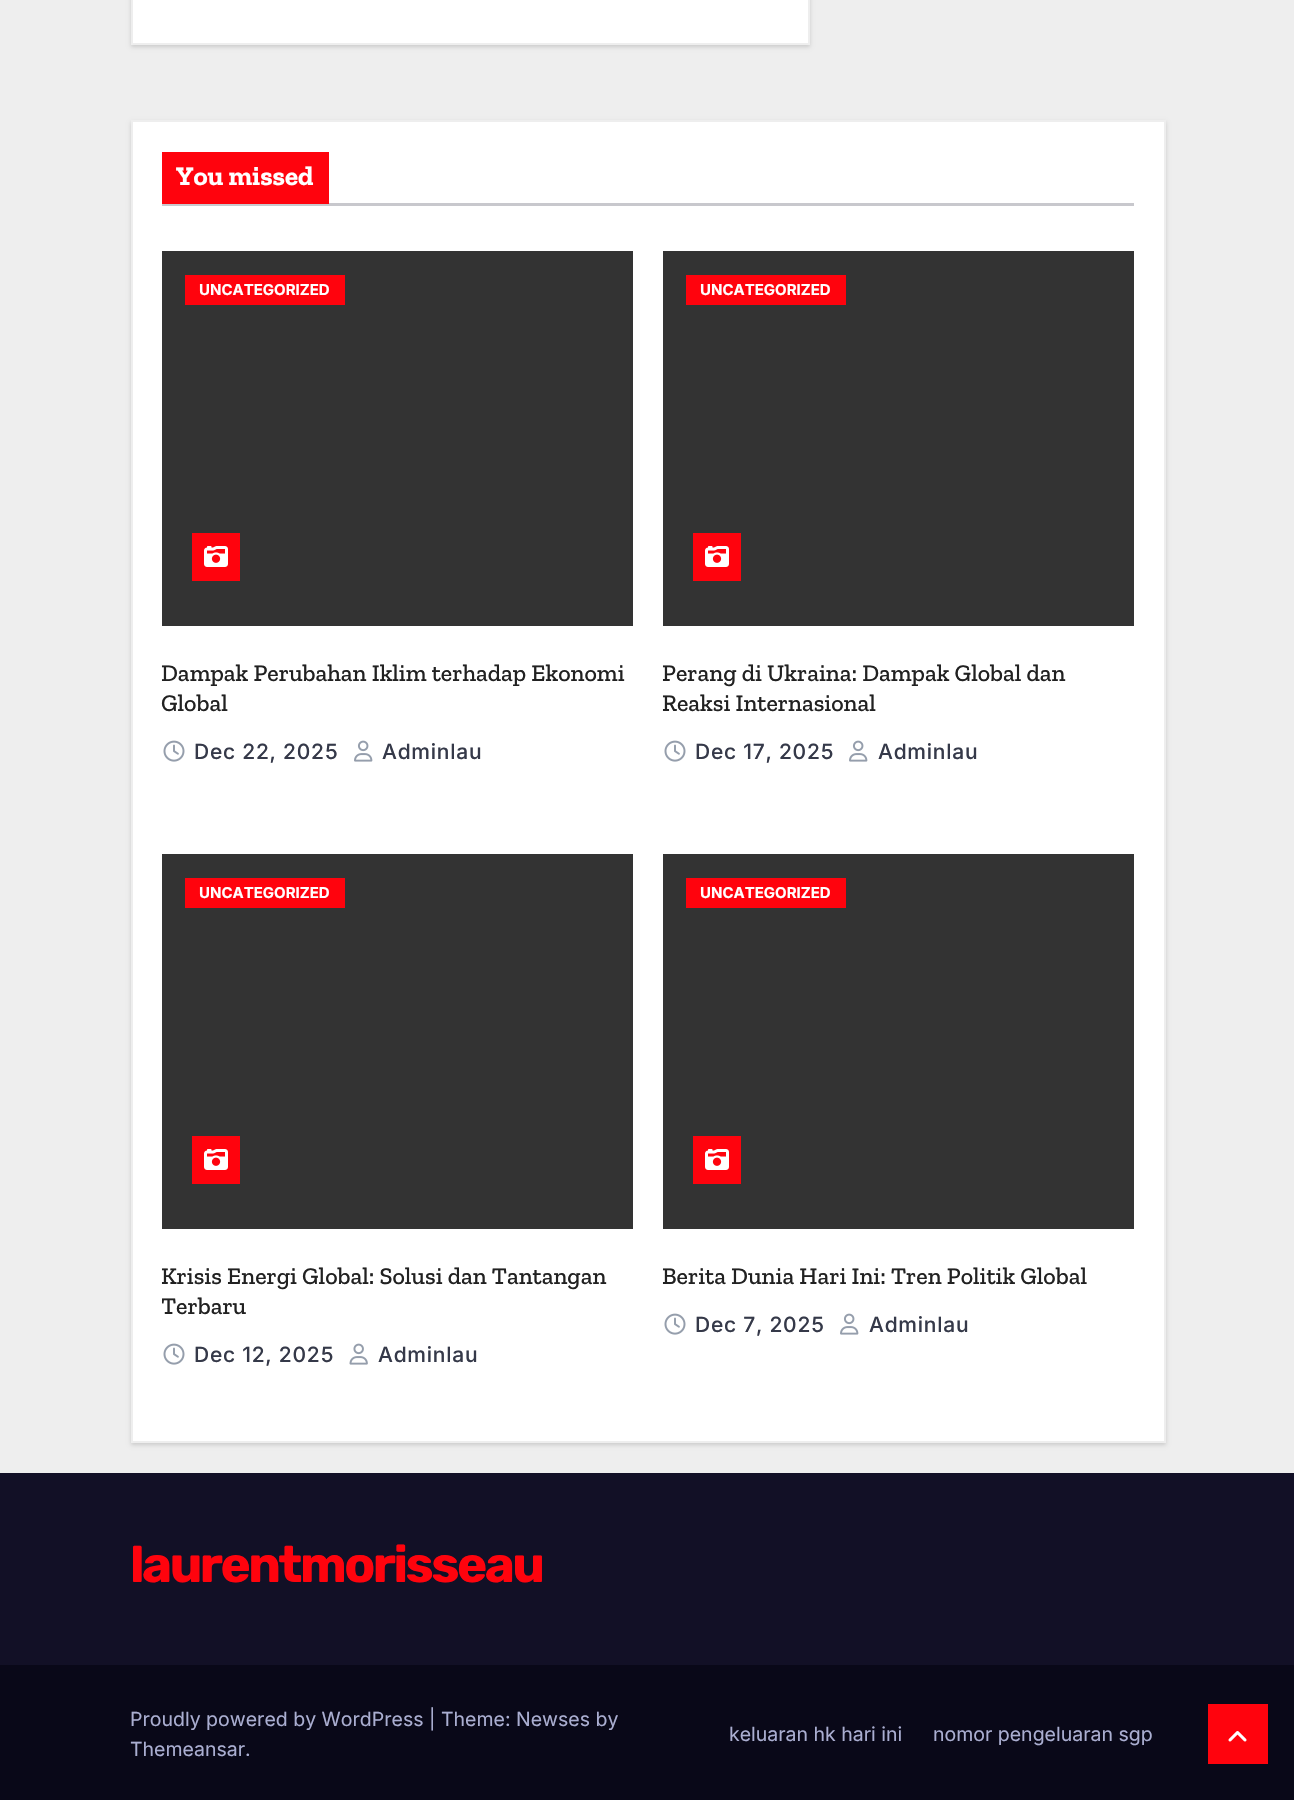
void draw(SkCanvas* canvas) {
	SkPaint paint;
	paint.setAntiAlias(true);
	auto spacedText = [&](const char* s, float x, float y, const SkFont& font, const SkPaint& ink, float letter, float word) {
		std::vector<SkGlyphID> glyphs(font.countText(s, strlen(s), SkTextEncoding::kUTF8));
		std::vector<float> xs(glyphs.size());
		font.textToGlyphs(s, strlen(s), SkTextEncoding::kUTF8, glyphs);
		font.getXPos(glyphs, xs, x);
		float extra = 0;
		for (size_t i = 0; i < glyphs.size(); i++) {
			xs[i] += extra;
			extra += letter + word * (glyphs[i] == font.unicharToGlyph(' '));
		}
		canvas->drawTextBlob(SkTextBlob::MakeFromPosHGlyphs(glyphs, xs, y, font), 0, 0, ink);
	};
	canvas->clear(0xffeeeeee);
	paint.setColor(0x26000000);
	paint.setMaskFilter(SkMaskFilter::MakeBlur(kNormal_SkBlurStyle, 2));
	canvas->drawRect(SkRect::MakeXYWH(131, -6, 679, 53), paint);
	paint.setMaskFilter(nullptr);
	paint.setColor(0xffffffff);
	canvas->drawRect(SkRect::MakeXYWH(132, -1, 677, 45), paint);
	paint.setStroke(true);
	paint.setStrokeWidth(2);
	paint.setColor(0xffeeeeee);
	canvas->drawRect(SkRect::MakeXYWH(132, -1, 677, 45), paint);
	paint.setStroke(false);
	paint.setColor(0x26000000);
	paint.setMaskFilter(SkMaskFilter::MakeBlur(kNormal_SkBlurStyle, 2));
	canvas->drawRect(SkRect::MakeXYWH(131, 122, 1035, 1323), paint);
	paint.setMaskFilter(nullptr);
	paint.setColor(0xffffffff);
	canvas->drawRect(SkRect::MakeXYWH(132, 121, 1033, 1321), paint);
	paint.setStroke(true);
	paint.setColor(0xffeeeeee);
	canvas->drawRect(SkRect::MakeXYWH(132, 121, 1033, 1321), paint);
	paint.setStroke(false);
	paint.setColor(0xffc8c8cd);
	canvas->drawRect(SkRect::MakeXYWH(162, 203, 972, 3), paint);
	paint.setColor(0xffff030d);
	canvas->drawRect(SkRect::MakeXYWH(162, 152, 167, 52), paint);
	SkFont f1(fontMgr->matchFamilyStyle("Zilla Slab", SkFontStyle::Bold()), 27);
	f1.setSubpixel(true);
	paint.setColor(0xffffffff);
	canvas->drawString("You missed", 176, 185, f1, paint);
	paint.setColor(0xff333333);
	canvas->drawRect(SkRect::MakeXYWH(162, 251, 471, 375), paint);
	paint.setColor(0xffff030d);
	canvas->drawRect(SkRect::MakeXYWH(185, 275, 160, 30), paint);
	SkFont f2(fontMgr->matchFamilyStyle("Inter", SkFontStyle::Bold()), 15);
	f2.setSubpixel(true);
	paint.setColor(0xffffffff);
	canvas->drawString("UNCATEGORIZED", 199, 295, f2, paint);
	paint.setColor(0xffff030d);
	canvas->drawRect(SkRect::MakeXYWH(192, 533, 48, 48), paint);
	canvas->drawImageRect(SkImages::DeferredFromEncodedData(SkData::MakeFromFileName("img1.png")), SkRect::MakeXYWH(204, 546, 24, 21), SkSamplingOptions());
	SkFont f3(fontMgr->matchFamilyStyle("Zilla Slab", SkFontStyle(500, SkFontStyle::kNormal_Width, SkFontStyle::kUpright_Slant)), 24);
	f3.setSubpixel(true);
	paint.setColor(0xff212121);
	canvas->drawString("Dampak Perubahan Iklim terhadap Ekonomi", 161, 681, f3, paint);
	canvas->drawString("Global", 161, 711, f3, paint);
	canvas->drawImageRect(SkImages::DeferredFromEncodedData(SkData::MakeFromFileName("img2.png")), SkRect::MakeXYWH(163, 740, 22, 22), SkSamplingOptions());
	SkFont f4(fontMgr->matchFamilyStyle("Inter", SkFontStyle(500, SkFontStyle::kNormal_Width, SkFontStyle::kUpright_Slant)), 21);
	f4.setSubpixel(true);
	paint.setColor(0xff353949);
	spacedText("Dec 22, 2025", 194, 759, f4, paint, 0.75, 0);
	canvas->drawImageRect(SkImages::DeferredFromEncodedData(SkData::MakeFromFileName("img3.png")), SkRect::MakeXYWH(354, 740, 19, 22), SkSamplingOptions());
	spacedText("Adminlau", 382, 759, f4, paint, 0.75, 0);
	paint.setColor(0xff333333);
	canvas->drawRect(SkRect::MakeXYWH(663, 251, 471, 375), paint);
	paint.setColor(0xffff030d);
	canvas->drawRect(SkRect::MakeXYWH(686, 275, 160, 30), paint);
	paint.setColor(0xffffffff);
	canvas->drawString("UNCATEGORIZED", 700, 295, f2, paint);
	paint.setColor(0xffff030d);
	canvas->drawRect(SkRect::MakeXYWH(693, 533, 48, 48), paint);
	canvas->drawImageRect(SkImages::DeferredFromEncodedData(SkData::MakeFromFileName("img1.png")), SkRect::MakeXYWH(705, 546, 24, 21), SkSamplingOptions());
	paint.setColor(0xff212121);
	canvas->drawString("Perang di Ukraina: Dampak Global dan", 662, 681, f3, paint);
	canvas->drawString("Reaksi Internasional", 662, 711, f3, paint);
	canvas->drawImageRect(SkImages::DeferredFromEncodedData(SkData::MakeFromFileName("img2.png")), SkRect::MakeXYWH(664, 740, 22, 22), SkSamplingOptions());
	paint.setColor(0xff353949);
	spacedText("Dec 17, 2025", 695, 759, f4, paint, 0.75, 0);
	canvas->drawImageRect(SkImages::DeferredFromEncodedData(SkData::MakeFromFileName("img3.png")), SkRect::MakeXYWH(849, 740, 19, 22), SkSamplingOptions());
	spacedText("Adminlau", 878, 759, f4, paint, 0.75, 0);
	paint.setColor(0xff333333);
	canvas->drawRect(SkRect::MakeXYWH(162, 854, 471, 375), paint);
	paint.setColor(0xffff030d);
	canvas->drawRect(SkRect::MakeXYWH(185, 878, 160, 30), paint);
	paint.setColor(0xffffffff);
	canvas->drawString("UNCATEGORIZED", 199, 898, f2, paint);
	paint.setColor(0xffff030d);
	canvas->drawRect(SkRect::MakeXYWH(192, 1136, 48, 48), paint);
	canvas->drawImageRect(SkImages::DeferredFromEncodedData(SkData::MakeFromFileName("img1.png")), SkRect::MakeXYWH(204, 1149, 24, 21), SkSamplingOptions());
	paint.setColor(0xff212121);
	canvas->drawString("Krisis Energi Global: Solusi dan Tantangan", 161, 1284, f3, paint);
	canvas->save();
	canvas->clipRect(SkRect::MakeXYWH(162, 1262, 471, 60));
	canvas->drawString("Terbaru", 161, 1314, f3, paint);
	canvas->restore();
	canvas->drawImageRect(SkImages::DeferredFromEncodedData(SkData::MakeFromFileName("img2.png")), SkRect::MakeXYWH(163, 1343, 22, 22), SkSamplingOptions());
	paint.setColor(0xff353949);
	spacedText("Dec 12, 2025", 194, 1362, f4, paint, 0.75, 0);
	canvas->drawImageRect(SkImages::DeferredFromEncodedData(SkData::MakeFromFileName("img4.png")), SkRect::MakeXYWH(349, 1343, 19, 22), SkSamplingOptions());
	spacedText("Adminlau", 378, 1362, f4, paint, 0.75, 0);
	paint.setColor(0xff333333);
	canvas->drawRect(SkRect::MakeXYWH(663, 854, 471, 375), paint);
	paint.setColor(0xffff030d);
	canvas->drawRect(SkRect::MakeXYWH(686, 878, 160, 30), paint);
	paint.setColor(0xffffffff);
	canvas->drawString("UNCATEGORIZED", 700, 898, f2, paint);
	paint.setColor(0xffff030d);
	canvas->drawRect(SkRect::MakeXYWH(693, 1136, 48, 48), paint);
	canvas->drawImageRect(SkImages::DeferredFromEncodedData(SkData::MakeFromFileName("img1.png")), SkRect::MakeXYWH(705, 1149, 24, 21), SkSamplingOptions());
	paint.setColor(0xff212121);
	canvas->drawString("Berita Dunia Hari Ini: Tren Politik Global", 662, 1284, f3, paint);
	canvas->drawImageRect(SkImages::DeferredFromEncodedData(SkData::MakeFromFileName("img2.png")), SkRect::MakeXYWH(664, 1313, 22, 22), SkSamplingOptions());
	paint.setColor(0xff353949);
	spacedText("Dec 7, 2025", 695, 1332, f4, paint, 0.75, 0);
	canvas->drawImageRect(SkImages::DeferredFromEncodedData(SkData::MakeFromFileName("img3.png")), SkRect::MakeXYWH(840, 1313, 19, 22), SkSamplingOptions());
	spacedText("Adminlau", 869, 1332, f4, paint, 0.75, 0);
	paint.setColor(0xff121026);
	canvas->drawRect(SkRect::MakeXYWH(0, 1473, 1294, 192), paint);
	SkFont f5(fontMgr->matchFamilyStyle("Rubik", SkFontStyle::Bold()), 51);
	f5.setSubpixel(true);
	paint.setColor(0xffff030d);
	spacedText("laurentmorisseau", 130, 1582, f5, paint, -2.5, 0);
	paint.setColor(0xff090818);
	canvas->drawRect(SkRect::MakeXYWH(0, 1665, 1294, 135), paint);
	SkFont f6(fontMgr->matchFamilyStyle("Inter", SkFontStyle::Normal()), 19.5);
	f6.setSubpixel(true);
	paint.setColor(0xffaaaed1);
	canvas->drawString("Proudly powered by WordPress | Theme: Newses by", 130, 1726, f6, paint);
	canvas->drawString("Themeansar.", 130, 1756, f6, paint);
	canvas->drawString("keluaran hk hari ini", 729, 1741, f6, paint);
	canvas->drawString("nomor pengeluaran sgp", 933, 1741, f6, paint);
	paint.setColor(0xffff030d);
	canvas->drawRect(SkRect::MakeXYWH(1208, 1704, 60, 60), paint);
	canvas->drawImageRect(SkImages::DeferredFromEncodedData(SkData::MakeFromFileName("img5.png")), SkRect::MakeXYWH(1228, 1731, 19, 11), SkSamplingOptions());
}
